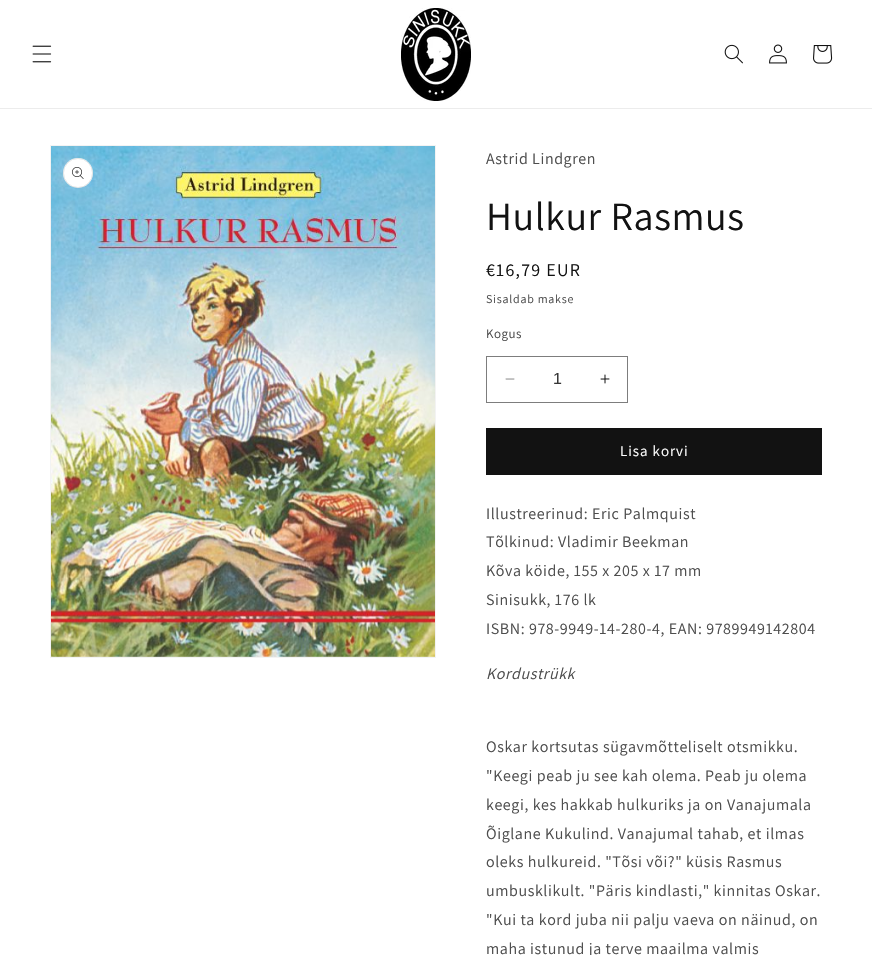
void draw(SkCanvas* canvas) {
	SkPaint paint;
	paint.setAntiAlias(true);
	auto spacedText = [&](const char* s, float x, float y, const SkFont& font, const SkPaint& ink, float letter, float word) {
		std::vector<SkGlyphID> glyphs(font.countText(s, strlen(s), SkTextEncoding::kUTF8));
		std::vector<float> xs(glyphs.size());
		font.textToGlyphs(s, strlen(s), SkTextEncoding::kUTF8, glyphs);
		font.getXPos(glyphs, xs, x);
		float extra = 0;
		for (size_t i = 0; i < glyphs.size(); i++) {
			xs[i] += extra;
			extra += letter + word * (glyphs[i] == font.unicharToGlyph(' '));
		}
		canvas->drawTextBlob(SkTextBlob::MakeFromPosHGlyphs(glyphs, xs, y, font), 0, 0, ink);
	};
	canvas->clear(0xffffffff);
	paint.setColor(0xffececec);
	canvas->drawRect(SkRect::MakeXYWH(0, 108, 872, 1), paint);
	canvas->drawImageRect(SkImages::DeferredFromEncodedData(SkData::MakeFromFileName("img1.png")), SkRect::MakeXYWH(32, 45, 20, 18), SkSamplingOptions());
	canvas->drawImageRect(SkImages::DeferredFromEncodedData(SkData::MakeFromFileName("img2.png")), SkRect::MakeXYWH(401, 8, 70, 93), SkSamplingOptions());
	canvas->drawImageRect(SkImages::DeferredFromEncodedData(SkData::MakeFromFileName("img3.png")), SkRect::MakeXYWH(724, 44, 19, 20), SkSamplingOptions());
	canvas->drawImageRect(SkImages::DeferredFromEncodedData(SkData::MakeFromFileName("img4.png")), SkRect::MakeXYWH(769, 44, 18, 20), SkSamplingOptions());
	canvas->drawImageRect(SkImages::DeferredFromEncodedData(SkData::MakeFromFileName("img5.png")), SkRect::MakeXYWH(813, 45, 20, 19), SkSamplingOptions());
	paint.setStroke(true);
	paint.setStrokeWidth(1);
	paint.setColor(0xfff3f3f3);
	canvas->drawRect(SkRect::MakeXYWH(50.5, 145.5, 385, 512), paint);
	canvas->drawImageRect(SkImages::DeferredFromEncodedData(SkData::MakeFromFileName("img6.png")), SkRect::MakeXYWH(51, 146, 384, 511), SkSamplingOptions());
	paint.setStroke(false);
	paint.setColor(0xffffffff);
	canvas->drawCircle(78, 173, 15, paint);
	paint.setStroke(true);
	paint.setColor(0x1a121212);
	canvas->drawCircle(78, 173, 14.5, paint);
	canvas->drawImageRect(SkImages::DeferredFromEncodedData(SkData::MakeFromFileName("img7.png")), SkRect::MakeXYWH(72, 167, 12, 12), SkSamplingOptions());
	SkFont f1(fontMgr->matchFamilyStyle("Assistant", SkFontStyle::Normal()), 16);
	f1.setSubpixel(true);
	paint.setStroke(false);
	paint.setColor(0xff4d4d4d);
	spacedText("Astrid Lindgren", 486, 164, f1, paint, 0.6, 0);
	SkFont f2(fontMgr->matchFamilyStyle("Assistant", SkFontStyle::Normal()), 40);
	f2.setSubpixel(true);
	paint.setColor(0xff121212);
	spacedText("Hulkur Rasmus", 486, 230, f2, paint, 0.6, 0);
	SkFont f3(fontMgr->matchFamilyStyle("Assistant", SkFontStyle::Normal()), 18);
	f3.setSubpixel(true);
	spacedText("€16,79 EUR", 486, 276, f3, paint, 1.25, 0);
	SkFont f4(fontMgr->matchFamilyStyle("Assistant", SkFontStyle::Normal()), 12);
	f4.setSubpixel(true);
	paint.setColor(0xff4d4d4d);
	spacedText("Sisaldab makse", 486, 303, f4, paint, 0.75, 0);
	SkFont f5(fontMgr->matchFamilyStyle("Assistant", SkFontStyle::Normal()), 13);
	f5.setSubpixel(true);
	spacedText("Kogus", 486, 338, f5, paint, 0.5, 0);
	canvas->drawImageRect(SkImages::DeferredFromEncodedData(SkData::MakeFromFileName("img8.png")), SkRect::MakeXYWH(505, 378, 10, 2), SkSamplingOptions());
	canvas->drawImageRect(SkImages::DeferredFromEncodedData(SkData::MakeFromFileName("img9.png")), SkRect::MakeXYWH(600, 374, 10, 10), SkSamplingOptions());
	paint.setStroke(true);
	paint.setColor(0xff7d7d7d);
	canvas->drawRect(SkRect::MakeXYWH(486.5, 356.5, 141, 46), paint);
	SkFont f6(fontMgr->matchFamilyStyle("Liberation Sans", SkFontStyle::Normal()), 16);
	f6.setSubpixel(true);
	paint.setStroke(false);
	paint.setColor(0xff363636);
	canvas->drawString("1", 553, 384, f6, paint);
	paint.setColor(0xff121212);
	canvas->drawRect(SkRect::MakeXYWH(486, 428, 336, 47), paint);
	SkFont f7(fontMgr->matchFamilyStyle("Assistant", SkFontStyle::Normal()), 15);
	f7.setSubpixel(true);
	paint.setColor(0xffffffff);
	spacedText("Lisa korvi", 620, 456, f7, paint, 1, 0);
	paint.setColor(0xff4d4d4d);
	spacedText("Illustreerinud: Eric Palmquist", 486, 519, f1, paint, 0.6, 0);
	spacedText("Tõlkinud: Vladimir Beekman", 486, 547, f1, paint, 0.6, 0);
	spacedText("Kõva köide, 155 x 205 x 17 mm", 486, 576, f1, paint, 0.6, 0);
	spacedText("Sinisukk, 176 lk", 486, 605, f1, paint, 0.6, 0);
	spacedText("ISBN: 978-9949-14-280-4, EAN: 9789949142804", 486, 634, f1, paint, 0.6, 0);
	SkFont f8(fontMgr->matchFamilyStyle("Assistant", SkFontStyle::Italic()), 16);
	f8.setSubpixel(true);
	spacedText("Kordustrükk", 486, 679, f8, paint, 0.6, 0);
	spacedText("Oskar kortsutas sügavmõtteliselt otsmikku.", 486, 752, f1, paint, 0.6, 0);
	spacedText("\"Keegi peab ju see kah olema. Peab ju olema", 486, 781, f1, paint, 0.6, 0);
	spacedText("keegi, kes hakkab hulkuriks ja on Vanajumala", 486, 810, f1, paint, 0.6, 0);
	spacedText("Õiglane Kukulind. Vanajumal tahab, et ilmas", 486, 839, f1, paint, 0.6, 0);
	spacedText("oleks hulkureid. \"Tõsi või?\" küsis Rasmus", 486, 867, f1, paint, 0.6, 0);
	spacedText("umbusklikult. \"Päris kindlasti,\" kinnitas Oskar.", 486, 896, f1, paint, 0.6, 0);
	spacedText("\"Kui ta kord juba nii palju vaeva on näinud, on", 486, 925, f1, paint, 0.6, 0);
	spacedText("maha istunud ja terve maailma valmis", 486, 954, f1, paint, 0.6, 0);
}
